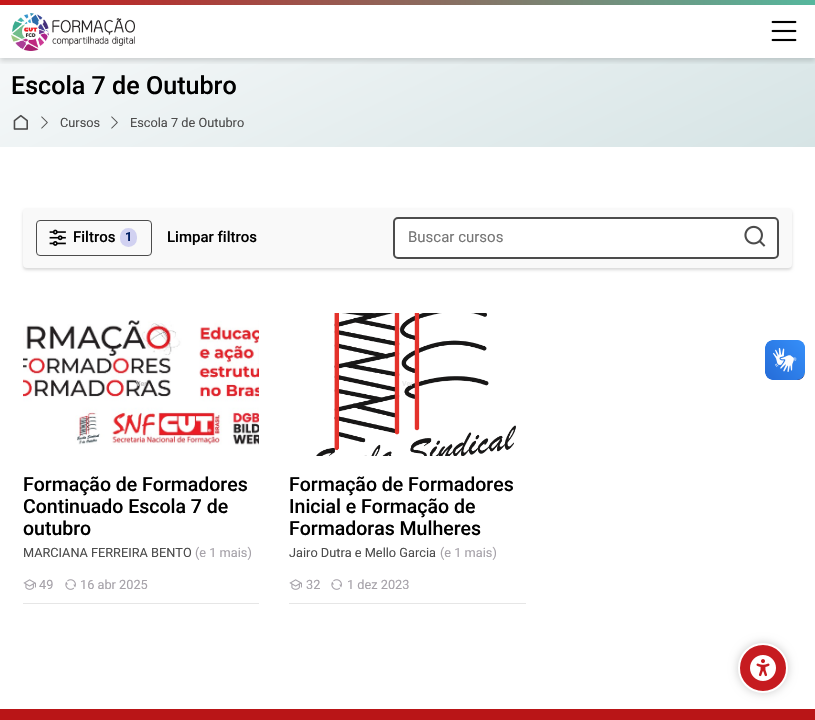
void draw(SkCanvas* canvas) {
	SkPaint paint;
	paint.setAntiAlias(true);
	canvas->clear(0xffffffff);
	{
		const SkColor colors[] = {0xfff4f7f8, 0xffd6e4e5};
		const float stops[] = {0.04, 1};
		const SkPoint ends[] = {{318, -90}, {498, 296}};
		paint.setShader(SkGradientShader::MakeLinear(ends, colors, stops, 2, SkTileMode::kClamp));
		paint.setAlpha(255);
	}
	canvas->drawRect(SkRect::MakeXYWH(0, 58, 815, 89), paint);
	canvas->save();
	canvas->clipRect(SkRect::MakeXYWH(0, 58, 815, 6));
	paint.setShader(nullptr);
	paint.setColor(0x26000000);
	paint.setMaskFilter(SkMaskFilter::MakeBlur(kNormal_SkBlurStyle, 2.5));
	canvas->drawRect(SkRect::MakeXYWH(0, 3, 815, 58), paint);
	paint.setMaskFilter(nullptr);
	canvas->restore();
	{
		const SkColor colors[] = {0xffc71719, 0xff56b79d};
		const float stops[] = {0, 1};
		const SkPoint ends[] = {{0, 2.5}, {815, 2.5}};
		paint.setShader(SkGradientShader::MakeLinear(ends, colors, stops, 2, SkTileMode::kClamp));
		paint.setAlpha(255);
	}
	canvas->drawRect(SkRect::MakeXYWH(0, 0, 815, 5), paint);
	canvas->drawImageRect(SkImages::DeferredFromEncodedData(SkData::MakeFromFileName("img1.png")), SkRect::MakeXYWH(11, 13, 124, 38), SkSamplingOptions());
	canvas->drawImageRect(SkImages::DeferredFromEncodedData(SkData::MakeFromFileName("img2.png")), SkRect::MakeXYWH(771, 20, 26, 22), SkSamplingOptions());
	SkFont f1(fontMgr->matchFamilyStyle("Roboto", SkFontStyle(500, SkFontStyle::kNormal_Width, SkFontStyle::kUpright_Slant)), 25.1);
	f1.setSubpixel(true);
	paint.setShader(nullptr);
	paint.setColor(0xff000000);
	canvas->drawString("Escola 7 de Outubro", 11, 94, f1, paint);
	canvas->drawImageRect(SkImages::DeferredFromEncodedData(SkData::MakeFromFileName("img3.png")), SkRect::MakeXYWH(13, 114, 15, 16), SkSamplingOptions());
	canvas->drawImageRect(SkImages::DeferredFromEncodedData(SkData::MakeFromFileName("img4.png")), SkRect::MakeXYWH(41, 116, 7, 13), SkSamplingOptions());
	SkFont f2(fontMgr->matchFamilyStyle("Roboto", SkFontStyle::Normal()), 12.75);
	f2.setSubpixel(true);
	paint.setColor(0xff4c4c4c);
	canvas->drawString("Cursos", 60, 127, f2, paint);
	canvas->drawImageRect(SkImages::DeferredFromEncodedData(SkData::MakeFromFileName("img5.png")), SkRect::MakeXYWH(111, 116, 7, 13), SkSamplingOptions());
	canvas->drawString("Escola 7 de Outubro", 130, 127, f2, paint);
	paint.setColor(0x26000000);
	paint.setMaskFilter(SkMaskFilter::MakeBlur(kNormal_SkBlurStyle, 1.5));
	canvas->drawRoundRect(SkRect::MakeXYWH(23, 210, 769, 60), 4, 4, paint);
	paint.setMaskFilter(nullptr);
	paint.setColor(0xfff9f9f9);
	canvas->drawRoundRect(SkRect::MakeXYWH(23, 208, 769, 60), 4, 4, paint);
	paint.setStroke(true);
	paint.setStrokeWidth(1);
	paint.setColor(0xff4c4c4c);
	canvas->drawRoundRect(SkRect::MakeXYWH(36.5, 220.5, 115, 35), 3.5, 3.5, paint);
	canvas->drawImageRect(SkImages::DeferredFromEncodedData(SkData::MakeFromFileName("img6.png")), SkRect::MakeXYWH(49, 229, 17, 17), SkSamplingOptions());
	SkFont f3(fontMgr->matchFamilyStyle("Roboto", SkFontStyle(500, SkFontStyle::kNormal_Width, SkFontStyle::kUpright_Slant)), 15);
	f3.setSubpixel(true);
	paint.setStroke(false);
	paint.setColor(0xff000000);
	canvas->drawString("Filtros", 73, 242, f3, paint);
	paint.setColor(0xffd1d1f1);
	canvas->drawRoundRect(SkRect::MakeXYWH(120, 228, 17, 19), 8.5, 8.5, paint);
	SkFont f4(fontMgr->matchFamilyStyle("Roboto", SkFontStyle::Bold()), 12.75);
	f4.setSubpixel(true);
	paint.setColor(0xff001e62);
	canvas->drawString("1", 125, 241, f4, paint);
	paint.setColor(0xff000000);
	canvas->drawString("Limpar filtros", 167, 242, f3, paint);
	paint.setColor(0xffffffff);
	canvas->drawRoundRect(SkRect::MakeXYWH(394, 218, 384, 40), 4, 4, paint);
	paint.setStroke(true);
	paint.setStrokeWidth(2);
	paint.setColor(0xff4c4c4c);
	canvas->drawRoundRect(SkRect::MakeXYWH(394, 218, 384, 40), 4, 4, paint);
	SkFont f5(fontMgr->matchFamilyStyle("Roboto", SkFontStyle::Normal()), 15);
	f5.setSubpixel(true);
	paint.setStroke(false);
	paint.setColor(0xff757575);
	canvas->drawString("Buscar cursos", 408, 242, f5, paint);
	canvas->drawImageRect(SkImages::DeferredFromEncodedData(SkData::MakeFromFileName("img7.png")), SkRect::MakeXYWH(744, 225, 22, 22), SkSamplingOptions());
	canvas->drawImageRect(SkImages::DeferredFromEncodedData(SkData::MakeFromFileName("img8.png")), SkRect::MakeXYWH(23, 320, 236, 125), SkSamplingOptions());
	SkFont f6(fontMgr->matchFamilyStyle("Roboto", SkFontStyle(500, SkFontStyle::kNormal_Width, SkFontStyle::kUpright_Slant)), 7);
	f6.setSubpixel(true);
	paint.setColor(0xffc1c0c1);
	canvas->drawString("Ver", 136, 386, f6, paint);
	SkFont f7(fontMgr->matchFamilyStyle("Roboto", SkFontStyle(500, SkFontStyle::kNormal_Width, SkFontStyle::kUpright_Slant)), 19.5);
	f7.setSubpixel(true);
	paint.setColor(0xff000000);
	canvas->drawString("Formação de Formadores", 23, 491, f7, paint);
	canvas->drawString("Continuado Escola 7 de", 23, 513, f7, paint);
	canvas->drawString("outubro", 23, 535, f7, paint);
	paint.setColor(0xff4c4c4c);
	canvas->drawString("MARCIANA FERREIRA BENTO", 23, 557, f2, paint);
	paint.setColor(0xffa6a2a9);
	canvas->drawString("(e 1 mais)", 195, 557, f2, paint);
	paint.setColor(0xffe6e6e6);
	canvas->drawRect(SkRect::MakeXYWH(23, 603, 236, 1), paint);
	canvas->drawImageRect(SkImages::DeferredFromEncodedData(SkData::MakeFromFileName("img9.png")), SkRect::MakeXYWH(23, 579, 13, 11), SkSamplingOptions());
	paint.setColor(0xffa6a2a9);
	canvas->drawString("49", 39, 589, f2, paint);
	canvas->drawImageRect(SkImages::DeferredFromEncodedData(SkData::MakeFromFileName("img10.png")), SkRect::MakeXYWH(65, 579, 11, 11), SkSamplingOptions());
	canvas->drawString("16 abr 2025", 80, 589, f2, paint);
	canvas->drawImageRect(SkImages::DeferredFromEncodedData(SkData::MakeFromFileName("img11.png")), SkRect::MakeXYWH(316, 313, 200, 143), SkSamplingOptions());
	paint.setColor(0xffe8e8e8);
	canvas->drawString("Ver", 402, 386, f6, paint);
	paint.setColor(0xff000000);
	canvas->drawString("Formação de Formadores", 289, 491, f7, paint);
	canvas->drawString("Inicial e Formação de", 289, 513, f7, paint);
	canvas->drawString("Formadoras Mulheres", 289, 535, f7, paint);
	paint.setColor(0xff4c4c4c);
	canvas->drawString("Jairo Dutra e Mello Garcia", 289, 557, f2, paint);
	paint.setColor(0xffa6a2a9);
	canvas->drawString("(e 1 mais)", 440, 557, f2, paint);
	paint.setColor(0xffe6e6e6);
	canvas->drawRect(SkRect::MakeXYWH(289, 603, 237, 1), paint);
	canvas->drawImageRect(SkImages::DeferredFromEncodedData(SkData::MakeFromFileName("img9.png")), SkRect::MakeXYWH(289, 579, 13, 11), SkSamplingOptions());
	paint.setColor(0xffa6a2a9);
	canvas->drawString("32", 306, 589, f2, paint);
	canvas->drawImageRect(SkImages::DeferredFromEncodedData(SkData::MakeFromFileName("img10.png")), SkRect::MakeXYWH(331, 579, 11, 11), SkSamplingOptions());
	canvas->drawString("1 dez 2023", 347, 589, f2, paint);
	paint.setColor(0xffb91517);
	canvas->drawRect(SkRect::MakeXYWH(0, 709, 815, 11), paint);
	canvas->drawImageRect(SkImages::DeferredFromEncodedData(SkData::MakeFromFileName("img12.png")), SkRect::MakeXYWH(765, 340, 40, 40), SkSamplingOptions());
	canvas->drawImageRect(SkImages::DeferredFromEncodedData(SkData::MakeFromFileName("img13.png")), SkRect::MakeXYWH(765, 340, 40, 40), SkSamplingOptions());
	paint.setColor(0x33000000);
	paint.setMaskFilter(SkMaskFilter::MakeBlur(kNormal_SkBlurStyle, 5));
	canvas->drawRoundRect(SkRect::MakeXYWH(738, 643, 50, 50), 25, 25, paint);
	paint.setMaskFilter(nullptr);
	paint.setColor(0xffc61b20);
	canvas->drawCircle(763, 668, 24, paint);
	paint.setStroke(true);
	paint.setColor(0xffffffff);
	canvas->drawCircle(763, 668, 24, paint);
	canvas->drawImageRect(SkImages::DeferredFromEncodedData(SkData::MakeFromFileName("img14.png")), SkRect::MakeXYWH(750, 655, 26, 26), SkSamplingOptions());
}
